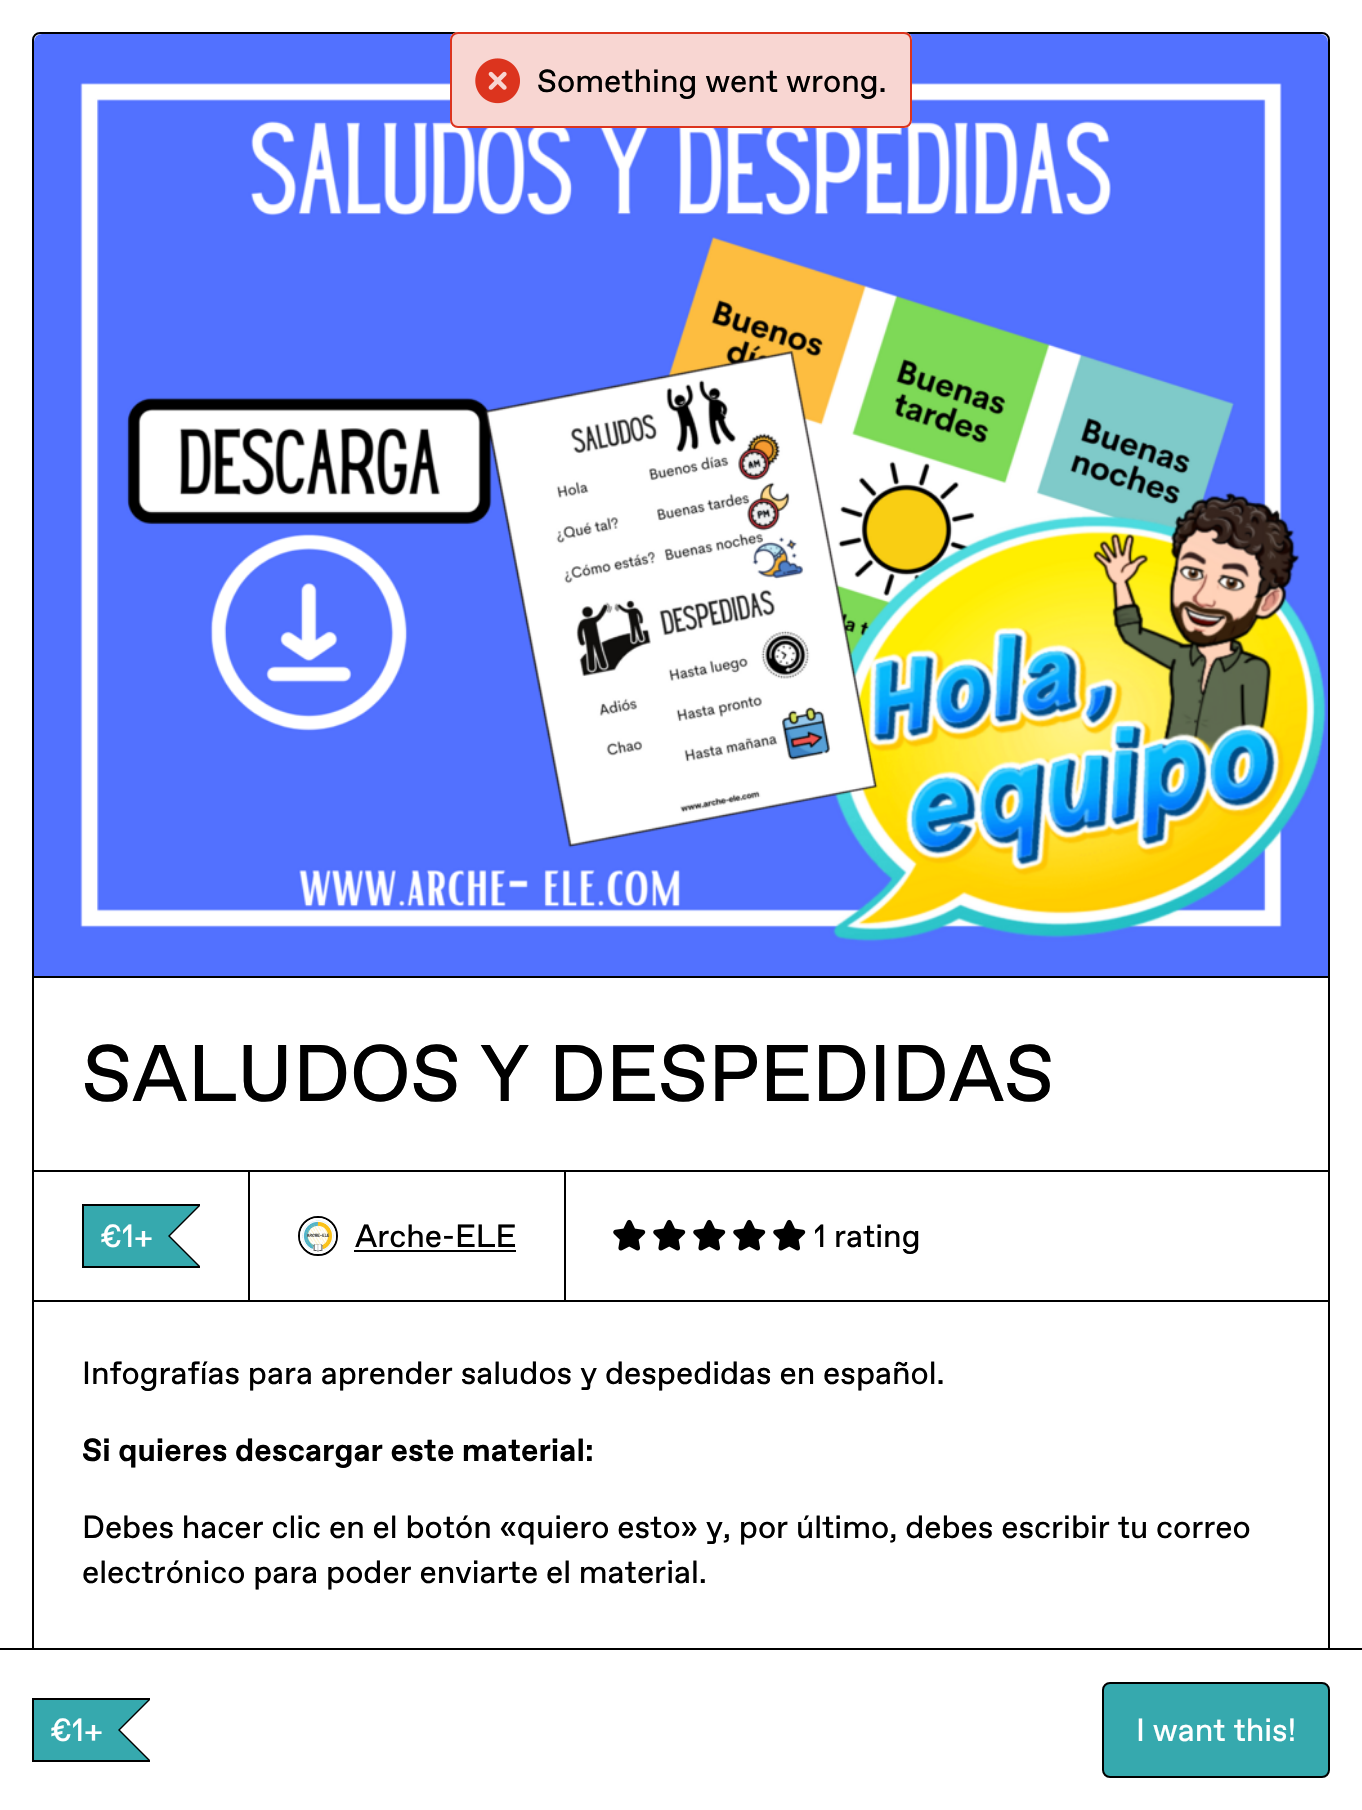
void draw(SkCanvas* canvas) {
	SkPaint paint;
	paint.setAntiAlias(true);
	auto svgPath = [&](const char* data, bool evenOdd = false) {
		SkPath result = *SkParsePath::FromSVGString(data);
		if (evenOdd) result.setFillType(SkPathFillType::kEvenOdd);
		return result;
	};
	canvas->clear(0xffffffff);
	paint.setStroke(true);
	paint.setStrokeWidth(2);
	paint.setColor(0xff000000);
	canvas->drawRoundRect(SkRect::MakeXYWH(33, 33, 1296, 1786), 7, 7, paint);
	canvas->drawImageRect(SkImages::DeferredFromEncodedData(SkData::MakeFromFileName("img2.png")), SkRect::MakeXYWH(34, 34, 1294, 942), SkSamplingOptions());
	paint.setStroke(false);
	paint.setColor(0xffffffff);
	canvas->drawRoundRect(SkRect::MakeXYWH(450, 32, 462, 96), 8, 8, paint);
	paint.setColor(0x33dc341e);
	canvas->drawRoundRect(SkRect::MakeXYWH(451, 33, 460, 94), 7, 7, paint);
	paint.setStroke(true);
	paint.setColor(0xffdc341e);
	canvas->drawRoundRect(SkRect::MakeXYWH(451, 33, 460, 94), 7, 7, paint);
	canvas->drawImageRect(SkImages::DeferredFromEncodedData(SkData::MakeFromFileName("img1.png")), SkRect::MakeXYWH(475, 58, 45, 46), SkSamplingOptions());
	SkFont f1(fontMgr->matchFamilyStyle("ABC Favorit", SkFontStyle::Normal()), 32);
	f1.setSubpixel(true);
	paint.setStroke(false);
	paint.setColor(0xff000000);
	canvas->drawString("Something went wrong.", 537, 92, f1, paint);
	canvas->drawRect(SkRect::MakeXYWH(34, 976, 1294, 2), paint);
	SkFont f2(fontMgr->matchFamilyStyle("ABC Favorit", SkFontStyle::Normal()), 80);
	f2.setSubpixel(true);
	canvas->drawString("SALUDOS Y DESPEDIDAS", 82, 1101, f2, paint);
	canvas->drawRect(SkRect::MakeXYWH(566, 1170, 762, 2), paint);
	paint.setStroke(true);
	canvas->drawRect(SkRect::MakeXYWH(33, 1171, 216, 130), paint);
	paint.setStroke(false);
	canvas->drawRect(SkRect::MakeXYWH(82, 1204, 118, 2), paint);
	canvas->drawRect(SkRect::MakeXYWH(82, 1266, 118, 2), paint);
	canvas->drawRect(SkRect::MakeXYWH(82, 1204, 2, 64), paint);
	paint.setColor(0xff36a9ae);
	canvas->drawRect(SkRect::MakeXYWH(84, 1206, 84, 60), paint);
	paint.setColor(0xff000000);
	canvas->drawPath(svgPath("M168 1206H200L170 1236ZM200 1266H168L170 1236Z"), paint);
	canvas->drawRect(SkRect::MakeXYWH(168, 1234, 2, 4), paint);
	paint.setColor(0xff36a9ae);
	canvas->drawPath(svgPath("M166 1206H198L168 1236ZM198 1266H166L168 1236Z"), paint);
	paint.setColor(0xffffffff);
	canvas->drawString("€1+", 100, 1247, f1, paint);
	paint.setStroke(true);
	paint.setColor(0xff000000);
	canvas->drawRect(SkRect::MakeXYWH(249, 1171, 316, 130), paint);
	canvas->drawCircle(318, 1236, 19, paint);
	canvas->drawImageRect(SkImages::DeferredFromEncodedData(SkData::MakeFromFileName("img3.png")), SkRect::MakeXYWH(300, 1218, 36, 36), SkSamplingOptions());
	paint.setStroke(false);
	canvas->drawString("Arche-ELE", 355, 1247, f1, paint);
	canvas->drawRect(SkRect::MakeXYWH(354, 1250, 162, 2), paint);
	canvas->drawImageRect(SkImages::DeferredFromEncodedData(SkData::MakeFromFileName("img4.png")), SkRect::MakeXYWH(613, 1219, 33, 32), SkSamplingOptions());
	canvas->drawImageRect(SkImages::DeferredFromEncodedData(SkData::MakeFromFileName("img4.png")), SkRect::MakeXYWH(653, 1219, 33, 32), SkSamplingOptions());
	canvas->drawImageRect(SkImages::DeferredFromEncodedData(SkData::MakeFromFileName("img4.png")), SkRect::MakeXYWH(693, 1219, 33, 32), SkSamplingOptions());
	canvas->drawImageRect(SkImages::DeferredFromEncodedData(SkData::MakeFromFileName("img4.png")), SkRect::MakeXYWH(733, 1219, 33, 32), SkSamplingOptions());
	canvas->drawImageRect(SkImages::DeferredFromEncodedData(SkData::MakeFromFileName("img4.png")), SkRect::MakeXYWH(773, 1219, 33, 32), SkSamplingOptions());
	canvas->drawString("1 rating", 814, 1247, f1, paint);
	canvas->drawRect(SkRect::MakeXYWH(566, 1300, 762, 2), paint);
	canvas->drawString("Infografías para aprender saludos y despedidas en español.", 82, 1384, f1, paint);
	SkFont f3(fontMgr->matchFamilyStyle("ABC Favorit", SkFontStyle::Bold()), 32);
	f3.setSubpixel(true);
	canvas->drawString("Si quieres descargar este material:", 82, 1461, f3, paint);
	canvas->drawString("Debes hacer clic en el botón «quiero esto» y, por último, debes escribir tu correo", 82, 1538, f1, paint);
	canvas->drawString("electrónico para poder enviarte el material.", 82, 1583, f1, paint);
	canvas->drawRect(SkRect::MakeXYWH(0, 1648, 1362, 2), paint);
	paint.setColor(0xffffffff);
	canvas->drawRect(SkRect::MakeXYWH(32, 1650, 1298, 160), paint);
	paint.setColor(0xff000000);
	canvas->drawRect(SkRect::MakeXYWH(32, 1698, 118, 2), paint);
	canvas->drawRect(SkRect::MakeXYWH(32, 1760, 118, 2), paint);
	canvas->drawRect(SkRect::MakeXYWH(32, 1698, 2, 64), paint);
	paint.setColor(0xff36a9ae);
	canvas->drawRect(SkRect::MakeXYWH(34, 1700, 84, 60), paint);
	paint.setColor(0xff000000);
	canvas->drawPath(svgPath("M118 1700H150L120 1730ZM150 1760H118L120 1730Z"), paint);
	canvas->drawRect(SkRect::MakeXYWH(118, 1728, 2, 4), paint);
	paint.setColor(0xff36a9ae);
	canvas->drawPath(svgPath("M116 1700H148L118 1730ZM148 1760H116L118 1730Z"), paint);
	paint.setColor(0xffffffff);
	canvas->drawString("€1+", 50, 1741, f1, paint);
	paint.setColor(0xff36a9ae);
	canvas->drawRoundRect(SkRect::MakeXYWH(1103, 1683, 226, 94), 7, 7, paint);
	paint.setStroke(true);
	paint.setColor(0xff000000);
	canvas->drawRoundRect(SkRect::MakeXYWH(1103, 1683, 226, 94), 7, 7, paint);
	paint.setStroke(false);
	paint.setColor(0xffffffff);
	canvas->drawString("I want this!", 1136, 1741, f1, paint);
}
